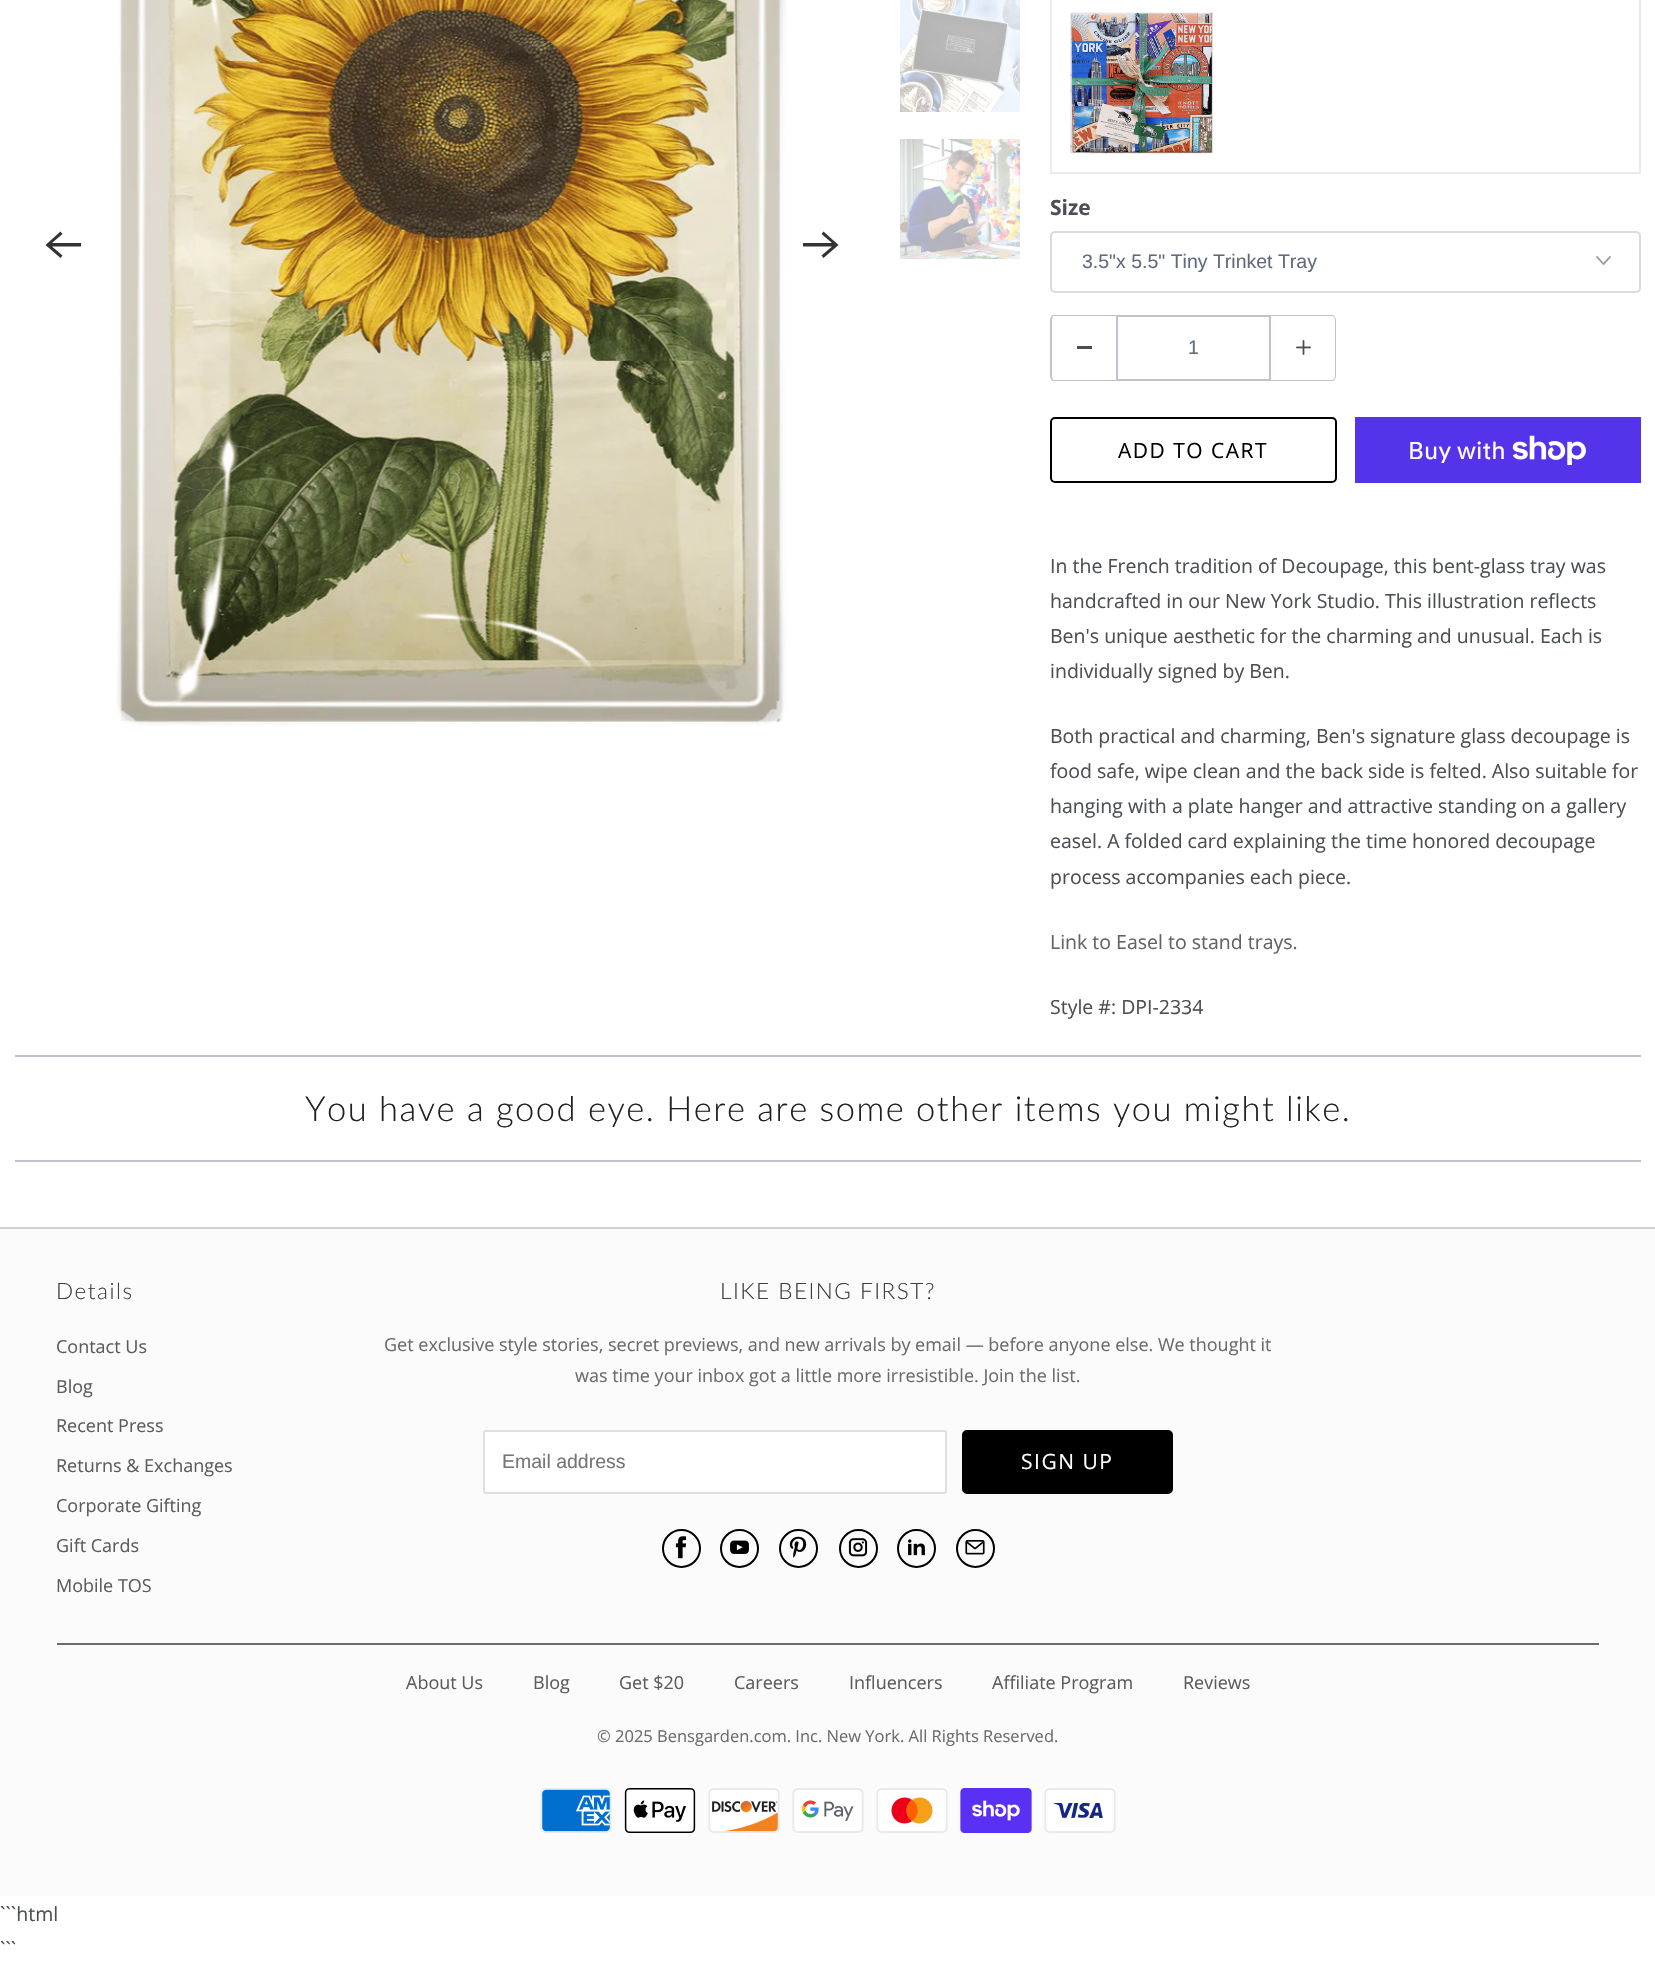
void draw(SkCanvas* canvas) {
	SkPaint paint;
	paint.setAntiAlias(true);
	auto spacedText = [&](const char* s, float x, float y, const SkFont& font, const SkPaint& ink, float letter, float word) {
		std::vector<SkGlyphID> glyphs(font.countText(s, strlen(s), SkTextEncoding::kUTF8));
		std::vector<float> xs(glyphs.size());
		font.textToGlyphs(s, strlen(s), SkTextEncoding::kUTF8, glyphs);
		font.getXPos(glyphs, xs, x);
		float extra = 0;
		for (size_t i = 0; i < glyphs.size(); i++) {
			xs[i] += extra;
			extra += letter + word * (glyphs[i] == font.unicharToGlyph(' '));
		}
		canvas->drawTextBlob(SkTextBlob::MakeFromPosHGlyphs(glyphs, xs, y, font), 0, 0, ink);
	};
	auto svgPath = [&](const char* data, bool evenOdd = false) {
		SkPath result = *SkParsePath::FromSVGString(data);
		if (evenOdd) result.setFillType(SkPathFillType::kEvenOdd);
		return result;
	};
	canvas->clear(0xffffffff);
	paint.setColor(0xff333333);
	canvas->drawPath(svgPath("M81 243H52L62.5 234L60.5 231.5L45.5 245L60.5 258L62.5 255.5L52 246.5H81Z"), paint);
	canvas->drawImageRect(SkImages::DeferredFromEncodedData(SkData::MakeFromFileName("img1.png")), SkRect::MakeXYWH(116, 0, 671, 726), SkSamplingOptions());
	canvas->drawPath(svgPath("M803 246.5H832L821.5 255.5L823.5 258L838.5 245L823.5 231.5L821.5 234L832 243H803Z"), paint);
	canvas->drawImageRect(SkImages::DeferredFromEncodedData(SkData::MakeFromFileName("img2.png")), SkRect::MakeXYWH(900, 0, 120, 112), SkSamplingOptions());
	canvas->drawImageRect(SkImages::DeferredFromEncodedData(SkData::MakeFromFileName("img3.png")), SkRect::MakeXYWH(900, 139, 120, 120), SkSamplingOptions());
	paint.setStroke(true);
	paint.setStrokeWidth(2);
	paint.setColor(0xffebebeb);
	canvas->drawRect(SkRect::MakeXYWH(1051, -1, 589, 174), paint);
	canvas->drawImageRect(SkImages::DeferredFromEncodedData(SkData::MakeFromFileName("img4.png")), SkRect::MakeXYWH(1070, 11, 143, 143), SkSamplingOptions());
	SkFont f1(fontMgr->matchFamilyStyle("Open Sans", SkFontStyle::Bold()), 21);
	f1.setSubpixel(true);
	paint.setStroke(false);
	paint.setColor(0xff4b4f54);
	canvas->drawString("Size", 1050, 215, f1, paint);
	canvas->drawImageRect(SkImages::DeferredFromEncodedData(SkData::MakeFromFileName("img5.png")), SkRect::MakeXYWH(1596, 256, 15, 9), SkSamplingOptions());
	paint.setStroke(true);
	paint.setColor(0xffd9dbdc);
	canvas->drawRoundRect(SkRect::MakeXYWH(1051, 232, 589, 60), 4, 4, paint);
	SkFont f2(fontMgr->matchFamilyStyle("Liberation Sans", SkFontStyle::Normal()), 19.5);
	f2.setSubpixel(true);
	paint.setStroke(false);
	paint.setColor(0xff5f6a7d);
	canvas->drawString("3.5\"x 5.5\" Tiny Trinket Tray", 1082, 268, f2, paint);
	paint.setColor(0xffc2c1cc);
	canvas->drawPath(svgPath("M1054 315H1116V381H1054C1052 381 1050 379 1050 376V320C1050 317 1052 315 1054 315ZM1054 316H1116V380H1054C1053 380 1052 378 1052 376V320C1052 318 1053 316 1054 316Z", true), paint);
	paint.setColor(0xff4b4f54);
	canvas->drawRect(SkRect::MakeXYWH(1077, 346, 15, 3), paint);
	paint.setStroke(true);
	paint.setColor(0xffc2c1cc);
	canvas->drawRect(SkRect::MakeXYWH(1117, 316, 153, 64), paint);
	paint.setStroke(false);
	paint.setColor(0xff5f6a7d);
	canvas->drawString("1", 1188, 354, f2, paint);
	paint.setColor(0xffc2c1cc);
	canvas->drawPath(svgPath("M1270 315H1332C1334 315 1336 317 1336 320V376C1336 379 1334 381 1332 381H1270ZM1270 316H1332C1334 316 1335 318 1335 320V376C1335 378 1334 380 1332 380H1270Z", true), paint);
	canvas->drawImageRect(SkImages::DeferredFromEncodedData(SkData::MakeFromFileName("img6.png")), SkRect::MakeXYWH(1296, 340, 15, 15), SkSamplingOptions());
	paint.setStroke(true);
	paint.setColor(0xff000000);
	canvas->drawRoundRect(SkRect::MakeXYWH(1051, 418, 285, 64), 4, 4, paint);
	SkFont f3(fontMgr->matchFamilyStyle("Open Sans", SkFontStyle::Normal()), 21);
	f3.setSubpixel(true);
	paint.setStroke(false);
	spacedText("ADD TO CART", 1118, 458, f3, paint, 1.5, 0);
	paint.setColor(0xff5433eb);
	canvas->drawRect(SkRect::MakeXYWH(1355, 417, 286, 66), paint);
	SkFont f4(fontMgr->matchFamilyStyle("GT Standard", SkFontStyle::Normal()), 24);
	f4.setSubpixel(true);
	paint.setColor(0xffffffff);
	canvas->drawString("Buy with", 1408, 459, f4, paint);
	canvas->drawImageRect(SkImages::DeferredFromEncodedData(SkData::MakeFromFileName("img7.png")), SkRect::MakeXYWH(1512, 435, 74, 30), SkSamplingOptions());
	SkFont f5(fontMgr->matchFamilyStyle("Open Sans", SkFontStyle::Normal()), 19.5);
	f5.setSubpixel(true);
	paint.setColor(0xff4b4f54);
	canvas->drawString("In the French tradition of Decoupage, this bent-glass tray was", 1050, 573, f5, paint);
	canvas->drawString("handcrafted in our New York Studio. This illustration reflects", 1050, 608, f5, paint);
	canvas->drawString("Ben's unique aesthetic for the charming and unusual. Each is", 1050, 643, f5, paint);
	canvas->drawString("individually signed by Ben.", 1050, 678, f5, paint);
	canvas->drawString("Both practical and charming, Ben's signature glass decoupage is", 1050, 743, f5, paint);
	canvas->drawString("food safe, wipe clean and the back side is felted. Also suitable for", 1050, 778, f5, paint);
	canvas->drawString("hanging with a plate hanger and attractive standing on a gallery", 1050, 813, f5, paint);
	canvas->drawString("easel. A folded card explaining the time honored decoupage", 1050, 848, f5, paint);
	canvas->drawString("process accompanies each piece.", 1050, 884, f5, paint);
	paint.setColor(0xff636363);
	canvas->drawString("Link to Easel to stand trays.", 1050, 949, f5, paint);
	paint.setColor(0xff4b4f54);
	canvas->drawString("Style #: DPI-2334", 1050, 1014, f5, paint);
	paint.setColor(0xffc2c1cc);
	canvas->drawRect(SkRect::MakeXYWH(15, 1055, 1626, 2), paint);
	canvas->drawRect(SkRect::MakeXYWH(15, 1160, 1626, 2), paint);
	SkFont f6(fontMgr->matchFamilyStyle("Lato", SkFontStyle(300, SkFontStyle::kNormal_Width, SkFontStyle::kUpright_Slant)), 34.5);
	f6.setSubpixel(true);
	paint.setColor(0xff1f2022);
	spacedText("You have a good eye. Here are some other items you might like.", 305, 1121, f6, paint, 1.5, 0);
	paint.setColor(0xfffbfbfb);
	canvas->drawRect(SkRect::MakeXYWH(0, 1229, 1655, 667), paint);
	paint.setColor(0xffd0d0d0);
	canvas->drawRect(SkRect::MakeXYWH(0, 1227, 1655, 2), paint);
	SkFont f7(fontMgr->matchFamilyStyle("Lato", SkFontStyle(300, SkFontStyle::kNormal_Width, SkFontStyle::kUpright_Slant)), 22.5);
	f7.setSubpixel(true);
	paint.setColor(0xff3f3e3e);
	spacedText("Details", 56, 1299, f7, paint, 1.5, 0);
	SkFont f8(fontMgr->matchFamilyStyle("Open Sans", SkFontStyle::Normal()), 18);
	f8.setSubpixel(true);
	paint.setColor(0xff5c5c5c);
	canvas->drawString("Contact Us", 56, 1353, f8, paint);
	canvas->drawString("Blog", 56, 1393, f8, paint);
	canvas->drawString("Recent Press", 56, 1432, f8, paint);
	canvas->drawString("Returns & Exchanges", 56, 1472, f8, paint);
	canvas->drawString("Corporate Gifting", 56, 1512, f8, paint);
	canvas->drawString("Gift Cards", 56, 1552, f8, paint);
	canvas->drawString("Mobile TOS", 56, 1592, f8, paint);
	paint.setColor(0xff3f3e3e);
	spacedText("LIKE BEING FIRST?", 720, 1299, f7, paint, 1.5, 0);
	paint.setColor(0xff6b6b6b);
	canvas->drawString("Get exclusive style stories, secret previews, and new arrivals by email — before anyone else. We thought it", 384, 1351, f8, paint);
	canvas->drawString("was time your inbox got a little more irresistible. Join the list.", 575, 1382, f8, paint);
	paint.setColor(0xffffffff);
	canvas->drawRoundRect(SkRect::MakeXYWH(484, 1431, 462, 62), 2, 2, paint);
	paint.setStroke(true);
	paint.setColor(0xffdfdfdf);
	canvas->drawRoundRect(SkRect::MakeXYWH(484, 1431, 462, 62), 2, 2, paint);
	paint.setStroke(false);
	paint.setColor(0xff757575);
	canvas->drawString("Email address", 502, 1468, f2, paint);
	paint.setColor(0xff000000);
	canvas->drawRoundRect(SkRect::MakeXYWH(963, 1431, 209, 62), 4, 4, paint);
	paint.setStroke(true);
	canvas->drawRoundRect(SkRect::MakeXYWH(963, 1431, 209, 62), 4, 4, paint);
	paint.setStroke(false);
	paint.setColor(0xffffffff);
	spacedText("SIGN UP", 1021, 1469, f3, paint, 1.5, 0);
	paint.setStroke(true);
	paint.setColor(0xff000000);
	canvas->drawCircle(681.5, 1548.5, 18.5, paint);
	canvas->drawImageRect(SkImages::DeferredFromEncodedData(SkData::MakeFromFileName("img8.png")), SkRect::MakeXYWH(675, 1536, 12, 23), SkSamplingOptions());
	canvas->drawCircle(739.5, 1548.5, 18.5, paint);
	canvas->drawImageRect(SkImages::DeferredFromEncodedData(SkData::MakeFromFileName("img9.png")), SkRect::MakeXYWH(730, 1540, 19, 14), SkSamplingOptions());
	canvas->drawCircle(798.5, 1548.5, 18.5, paint);
	canvas->drawImageRect(SkImages::DeferredFromEncodedData(SkData::MakeFromFileName("img10.png")), SkRect::MakeXYWH(789, 1536, 18, 22), SkSamplingOptions());
	canvas->drawCircle(858.5, 1548.5, 18.5, paint);
	canvas->drawImageRect(SkImages::DeferredFromEncodedData(SkData::MakeFromFileName("img11.png")), SkRect::MakeXYWH(848, 1538, 20, 19), SkSamplingOptions());
	canvas->drawCircle(916.5, 1548.5, 18.5, paint);
	canvas->drawImageRect(SkImages::DeferredFromEncodedData(SkData::MakeFromFileName("img12.png")), SkRect::MakeXYWH(908, 1539, 17, 17), SkSamplingOptions());
	canvas->drawCircle(975.5, 1548.5, 18.5, paint);
	canvas->drawImageRect(SkImages::DeferredFromEncodedData(SkData::MakeFromFileName("img13.png")), SkRect::MakeXYWH(965, 1540, 20, 15), SkSamplingOptions());
	paint.setStroke(false);
	paint.setColor(0xff6b6b6b);
	canvas->drawRect(SkRect::MakeXYWH(57, 1643, 1542, 2), paint);
	paint.setColor(0xff5c5c5c);
	canvas->drawString("About Us", 406, 1689, f8, paint);
	canvas->drawString("Blog", 533, 1689, f8, paint);
	canvas->drawString("Get $20", 619, 1689, f8, paint);
	canvas->drawString("Careers", 734, 1689, f8, paint);
	canvas->drawString("Influencers", 849, 1689, f8, paint);
	canvas->drawString("Affiliate Program", 992, 1689, f8, paint);
	canvas->drawString("Reviews", 1183, 1689, f8, paint);
	SkFont f9(fontMgr->matchFamilyStyle("Open Sans", SkFontStyle::Normal()), 16.5);
	f9.setSubpixel(true);
	paint.setColor(0xff6b6b6b);
	canvas->drawString("© 2025 Bensgarden.com. Inc. New York. All Rights Reserved.", 597, 1742, f9, paint);
	canvas->drawImageRect(SkImages::DeferredFromEncodedData(SkData::MakeFromFileName("img14.png")), SkRect::MakeXYWH(540, 1788, 72, 45), SkSamplingOptions());
	canvas->drawImageRect(SkImages::DeferredFromEncodedData(SkData::MakeFromFileName("img15.png")), SkRect::MakeXYWH(624, 1788, 72, 45), SkSamplingOptions());
	canvas->drawImageRect(SkImages::DeferredFromEncodedData(SkData::MakeFromFileName("img16.png")), SkRect::MakeXYWH(708, 1788, 72, 45), SkSamplingOptions());
	canvas->drawImageRect(SkImages::DeferredFromEncodedData(SkData::MakeFromFileName("img17.png")), SkRect::MakeXYWH(792, 1788, 72, 45), SkSamplingOptions());
	canvas->drawImageRect(SkImages::DeferredFromEncodedData(SkData::MakeFromFileName("img18.png")), SkRect::MakeXYWH(876, 1788, 72, 45), SkSamplingOptions());
	canvas->drawImageRect(SkImages::DeferredFromEncodedData(SkData::MakeFromFileName("img19.png")), SkRect::MakeXYWH(960, 1788, 72, 45), SkSamplingOptions());
	canvas->drawImageRect(SkImages::DeferredFromEncodedData(SkData::MakeFromFileName("img20.png")), SkRect::MakeXYWH(1044, 1788, 72, 45), SkSamplingOptions());
	paint.setColor(0xff4b4f54);
	canvas->drawString("```html", 0, 1921, f5, paint);
	canvas->drawString("```", 0, 1956, f5, paint);
}
